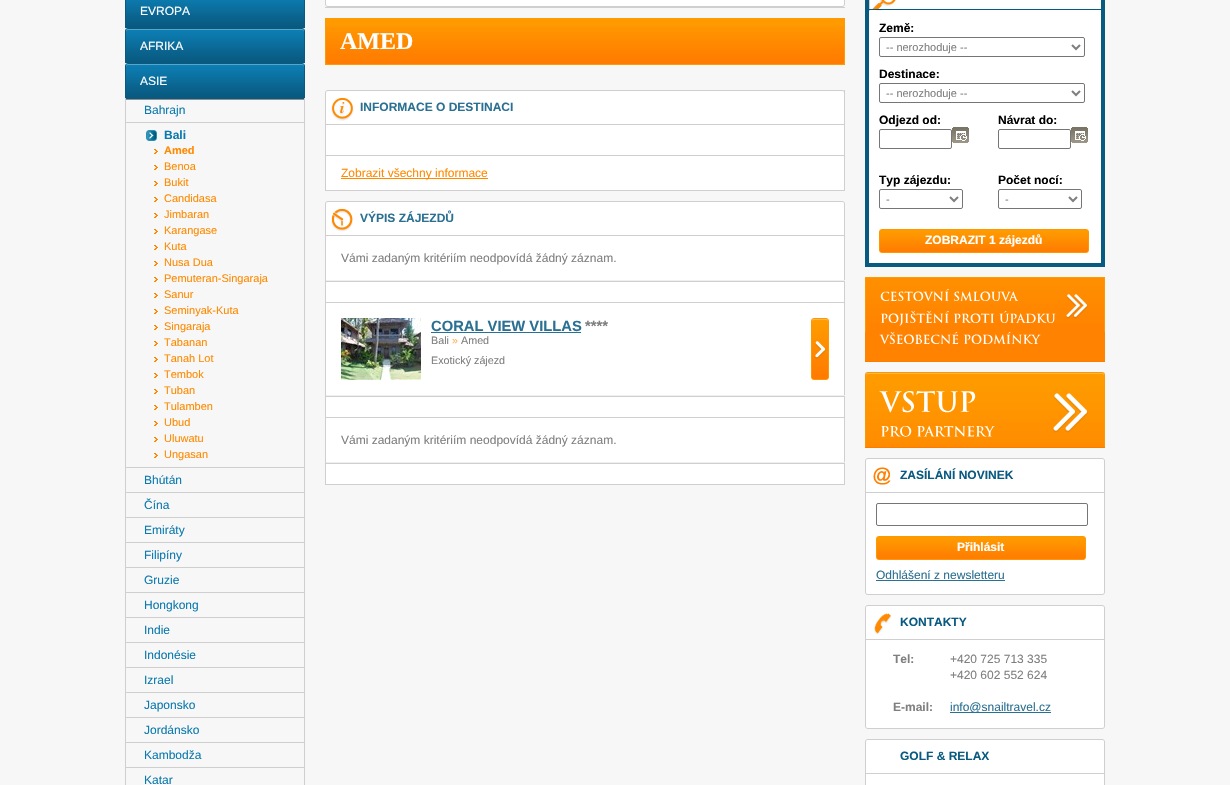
void draw(SkCanvas* canvas) {
	SkPaint paint;
	paint.setAntiAlias(true);
	auto svgPath = [&](const char* data, bool evenOdd = false) {
		SkPath result = *SkParsePath::FromSVGString(data);
		if (evenOdd) result.setFillType(SkPathFillType::kEvenOdd);
		return result;
	};
	canvas->clear(0xfff7f7f7);
	canvas->drawImageRect(SkImages::DeferredFromEncodedData(SkData::MakeFromFileName("img1.png")), SkRect::MakeXYWH(125, 0, 180, 28), SkSamplingOptions());
	SkFont f1(fontMgr->matchFamilyStyle("Liberation Sans", SkFontStyle::Normal()), 12);
	f1.setSubpixel(true);
	paint.setColor(0xffffffff);
	canvas->drawString("EVROPA", 140, 15, f1, paint);
	canvas->drawImageRect(SkImages::DeferredFromEncodedData(SkData::MakeFromFileName("img2.png")), SkRect::MakeXYWH(125, 28, 180, 35), SkSamplingOptions());
	canvas->drawString("AFRIKA", 140, 50, f1, paint);
	canvas->drawImageRect(SkImages::DeferredFromEncodedData(SkData::MakeFromFileName("img3.png")), SkRect::MakeXYWH(125, 63, 180, 37), SkSamplingOptions());
	canvas->drawString("ASIE", 140, 85, f1, paint);
	paint.setColor(0xffcfcfcf);
	canvas->drawRect(SkRect::MakeXYWH(304, 98, 1, 687), paint);
	canvas->drawRect(SkRect::MakeXYWH(125, 122, 180, 1), paint);
	canvas->drawRect(SkRect::MakeXYWH(125, 98, 1, 25), paint);
	paint.setColor(0xff0c7aae);
	canvas->drawString("Bahrajn", 144, 114, f1, paint);
	canvas->drawImageRect(SkImages::DeferredFromEncodedData(SkData::MakeFromFileName("img4.png")), SkRect::MakeXYWH(146, 130, 11, 11), SkSamplingOptions());
	paint.setColor(0xffcfcfcf);
	canvas->drawRect(SkRect::MakeXYWH(125, 467, 180, 1), paint);
	canvas->drawRect(SkRect::MakeXYWH(125, 123, 1, 345), paint);
	SkFont f2(fontMgr->matchFamilyStyle("Liberation Sans", SkFontStyle::Bold()), 12);
	f2.setSubpixel(true);
	paint.setColor(0xff0c7aae);
	canvas->drawString("Bali", 164, 139, f2, paint);
	canvas->drawImageRect(SkImages::DeferredFromEncodedData(SkData::MakeFromFileName("img5.png")), SkRect::MakeXYWH(154, 149, 4, 5), SkSamplingOptions());
	SkFont f3(fontMgr->matchFamilyStyle("Liberation Sans", SkFontStyle::Bold()), 11);
	f3.setSubpixel(true);
	paint.setColor(0xffff8a00);
	canvas->drawString("Amed", 164, 154, f3, paint);
	canvas->drawImageRect(SkImages::DeferredFromEncodedData(SkData::MakeFromFileName("img5.png")), SkRect::MakeXYWH(154, 165, 4, 5), SkSamplingOptions());
	SkFont f4(fontMgr->matchFamilyStyle("Liberation Sans", SkFontStyle::Normal()), 11);
	f4.setSubpixel(true);
	canvas->drawString("Benoa", 164, 170, f4, paint);
	canvas->drawImageRect(SkImages::DeferredFromEncodedData(SkData::MakeFromFileName("img5.png")), SkRect::MakeXYWH(154, 181, 4, 5), SkSamplingOptions());
	canvas->drawString("Bukit", 164, 186, f4, paint);
	canvas->drawImageRect(SkImages::DeferredFromEncodedData(SkData::MakeFromFileName("img5.png")), SkRect::MakeXYWH(154, 197, 4, 5), SkSamplingOptions());
	canvas->drawString("Candidasa", 164, 202, f4, paint);
	canvas->drawImageRect(SkImages::DeferredFromEncodedData(SkData::MakeFromFileName("img5.png")), SkRect::MakeXYWH(154, 213, 4, 5), SkSamplingOptions());
	canvas->drawString("Jimbaran", 164, 218, f4, paint);
	canvas->drawImageRect(SkImages::DeferredFromEncodedData(SkData::MakeFromFileName("img5.png")), SkRect::MakeXYWH(154, 229, 4, 5), SkSamplingOptions());
	canvas->drawString("Karangase", 164, 234, f4, paint);
	canvas->drawImageRect(SkImages::DeferredFromEncodedData(SkData::MakeFromFileName("img5.png")), SkRect::MakeXYWH(154, 245, 4, 5), SkSamplingOptions());
	canvas->drawString("Kuta", 164, 250, f4, paint);
	canvas->drawImageRect(SkImages::DeferredFromEncodedData(SkData::MakeFromFileName("img5.png")), SkRect::MakeXYWH(154, 261, 4, 5), SkSamplingOptions());
	canvas->drawString("Nusa Dua", 164, 266, f4, paint);
	canvas->drawImageRect(SkImages::DeferredFromEncodedData(SkData::MakeFromFileName("img5.png")), SkRect::MakeXYWH(154, 277, 4, 5), SkSamplingOptions());
	canvas->drawString("Pemuteran-Singaraja", 164, 282, f4, paint);
	canvas->drawImageRect(SkImages::DeferredFromEncodedData(SkData::MakeFromFileName("img5.png")), SkRect::MakeXYWH(154, 293, 4, 5), SkSamplingOptions());
	canvas->drawString("Sanur", 164, 298, f4, paint);
	canvas->drawImageRect(SkImages::DeferredFromEncodedData(SkData::MakeFromFileName("img5.png")), SkRect::MakeXYWH(154, 309, 4, 5), SkSamplingOptions());
	canvas->drawString("Seminyak-Kuta", 164, 314, f4, paint);
	canvas->drawImageRect(SkImages::DeferredFromEncodedData(SkData::MakeFromFileName("img5.png")), SkRect::MakeXYWH(154, 325, 4, 5), SkSamplingOptions());
	canvas->drawString("Singaraja", 164, 330, f4, paint);
	canvas->drawImageRect(SkImages::DeferredFromEncodedData(SkData::MakeFromFileName("img5.png")), SkRect::MakeXYWH(154, 341, 4, 5), SkSamplingOptions());
	canvas->drawString("Tabanan", 164, 346, f4, paint);
	canvas->drawImageRect(SkImages::DeferredFromEncodedData(SkData::MakeFromFileName("img5.png")), SkRect::MakeXYWH(154, 357, 4, 5), SkSamplingOptions());
	canvas->drawString("Tanah Lot", 164, 362, f4, paint);
	canvas->drawImageRect(SkImages::DeferredFromEncodedData(SkData::MakeFromFileName("img5.png")), SkRect::MakeXYWH(154, 373, 4, 5), SkSamplingOptions());
	canvas->drawString("Tembok", 164, 378, f4, paint);
	canvas->drawImageRect(SkImages::DeferredFromEncodedData(SkData::MakeFromFileName("img5.png")), SkRect::MakeXYWH(154, 389, 4, 5), SkSamplingOptions());
	canvas->drawString("Tuban", 164, 394, f4, paint);
	canvas->drawImageRect(SkImages::DeferredFromEncodedData(SkData::MakeFromFileName("img5.png")), SkRect::MakeXYWH(154, 405, 4, 5), SkSamplingOptions());
	canvas->drawString("Tulamben", 164, 410, f4, paint);
	canvas->drawImageRect(SkImages::DeferredFromEncodedData(SkData::MakeFromFileName("img5.png")), SkRect::MakeXYWH(154, 421, 4, 5), SkSamplingOptions());
	canvas->drawString("Ubud", 164, 426, f4, paint);
	canvas->drawImageRect(SkImages::DeferredFromEncodedData(SkData::MakeFromFileName("img5.png")), SkRect::MakeXYWH(154, 437, 4, 5), SkSamplingOptions());
	canvas->drawString("Uluwatu", 164, 442, f4, paint);
	canvas->drawImageRect(SkImages::DeferredFromEncodedData(SkData::MakeFromFileName("img5.png")), SkRect::MakeXYWH(154, 453, 4, 5), SkSamplingOptions());
	canvas->drawString("Ungasan", 164, 458, f4, paint);
	paint.setColor(0xffcfcfcf);
	canvas->drawRect(SkRect::MakeXYWH(125, 492, 180, 1), paint);
	canvas->drawRect(SkRect::MakeXYWH(125, 468, 1, 25), paint);
	paint.setColor(0xff0c7aae);
	canvas->drawString("Bhútán", 144, 484, f1, paint);
	paint.setColor(0xffcfcfcf);
	canvas->drawRect(SkRect::MakeXYWH(125, 517, 180, 1), paint);
	canvas->drawRect(SkRect::MakeXYWH(125, 493, 1, 25), paint);
	paint.setColor(0xff0c7aae);
	canvas->drawString("Čína", 144, 509, f1, paint);
	paint.setColor(0xffcfcfcf);
	canvas->drawRect(SkRect::MakeXYWH(125, 542, 180, 1), paint);
	canvas->drawRect(SkRect::MakeXYWH(125, 518, 1, 25), paint);
	paint.setColor(0xff0c7aae);
	canvas->drawString("Emiráty", 144, 534, f1, paint);
	paint.setColor(0xffcfcfcf);
	canvas->drawRect(SkRect::MakeXYWH(125, 567, 180, 1), paint);
	canvas->drawRect(SkRect::MakeXYWH(125, 543, 1, 25), paint);
	paint.setColor(0xff0c7aae);
	canvas->drawString("Filipíny", 144, 559, f1, paint);
	paint.setColor(0xffcfcfcf);
	canvas->drawRect(SkRect::MakeXYWH(125, 592, 180, 1), paint);
	canvas->drawRect(SkRect::MakeXYWH(125, 568, 1, 25), paint);
	paint.setColor(0xff0c7aae);
	canvas->drawString("Gruzie", 144, 584, f1, paint);
	paint.setColor(0xffcfcfcf);
	canvas->drawRect(SkRect::MakeXYWH(125, 617, 180, 1), paint);
	canvas->drawRect(SkRect::MakeXYWH(125, 593, 1, 25), paint);
	paint.setColor(0xff0c7aae);
	canvas->drawString("Hongkong", 144, 609, f1, paint);
	paint.setColor(0xffcfcfcf);
	canvas->drawRect(SkRect::MakeXYWH(125, 642, 180, 1), paint);
	canvas->drawRect(SkRect::MakeXYWH(125, 618, 1, 25), paint);
	paint.setColor(0xff0c7aae);
	canvas->drawString("Indie", 144, 634, f1, paint);
	paint.setColor(0xffcfcfcf);
	canvas->drawRect(SkRect::MakeXYWH(125, 667, 180, 1), paint);
	canvas->drawRect(SkRect::MakeXYWH(125, 643, 1, 25), paint);
	paint.setColor(0xff0c7aae);
	canvas->drawString("Indonésie", 144, 659, f1, paint);
	paint.setColor(0xffcfcfcf);
	canvas->drawRect(SkRect::MakeXYWH(125, 692, 180, 1), paint);
	canvas->drawRect(SkRect::MakeXYWH(125, 668, 1, 25), paint);
	paint.setColor(0xff0c7aae);
	canvas->drawString("Izrael", 144, 684, f1, paint);
	paint.setColor(0xffcfcfcf);
	canvas->drawRect(SkRect::MakeXYWH(125, 717, 180, 1), paint);
	canvas->drawRect(SkRect::MakeXYWH(125, 693, 1, 25), paint);
	paint.setColor(0xff0c7aae);
	canvas->drawString("Japonsko", 144, 709, f1, paint);
	paint.setColor(0xffcfcfcf);
	canvas->drawRect(SkRect::MakeXYWH(125, 742, 180, 1), paint);
	canvas->drawRect(SkRect::MakeXYWH(125, 718, 1, 25), paint);
	paint.setColor(0xff0c7aae);
	canvas->drawString("Jordánsko", 144, 734, f1, paint);
	paint.setColor(0xffcfcfcf);
	canvas->drawRect(SkRect::MakeXYWH(125, 767, 180, 1), paint);
	canvas->drawRect(SkRect::MakeXYWH(125, 743, 1, 42), paint);
	paint.setColor(0xff0c7aae);
	canvas->drawString("Kambodža", 144, 759, f1, paint);
	canvas->drawString("Katar", 144, 784, f1, paint);
	canvas->drawImageRect(SkImages::DeferredFromEncodedData(SkData::MakeFromFileName("img6.png")), SkRect::MakeXYWH(325, 0, 520, 8), SkSamplingOptions());
	paint.setColor(0xffff9b00);
	canvas->drawRect(SkRect::MakeXYWH(325, 18, 520, 47), paint);
	canvas->drawImageRect(SkImages::DeferredFromEncodedData(SkData::MakeFromFileName("img7.png")), SkRect::MakeXYWH(326, 26, 518, 38), SkSamplingOptions());
	SkFont f5(fontMgr->matchFamilyStyle("Liberation Serif", SkFontStyle::Bold()), 24);
	f5.setSubpixel(true);
	paint.setColor(0xffffffff);
	canvas->drawString("AMED", 340, 49, f5, paint);
	canvas->drawRect(SkRect::MakeXYWH(326, 125, 518, 30), paint);
	paint.setColor(0xffcfcfcf);
	canvas->drawRect(SkRect::MakeXYWH(844, 90, 1, 65), paint);
	canvas->drawRect(SkRect::MakeXYWH(325, 125, 1, 30), paint);
	canvas->drawImageRect(SkImages::DeferredFromEncodedData(SkData::MakeFromFileName("img8.png")), SkRect::MakeXYWH(325, 90, 519, 35), SkSamplingOptions());
	paint.setColor(0xff2a7092);
	canvas->drawString("INFORMACE O DESTINACI", 360, 111, f2, paint);
	paint.setColor(0xffffffff);
	canvas->drawRect(SkRect::MakeXYWH(325.5, 155.5, 519, 35), paint);
	paint.setStroke(true);
	paint.setStrokeWidth(1);
	paint.setColor(0xffcfcfcf);
	canvas->drawRect(SkRect::MakeXYWH(325.5, 155.5, 519, 35), paint);
	paint.setStroke(false);
	paint.setColor(0xffff8a00);
	canvas->drawRect(SkRect::MakeXYWH(341, 178, 147, 1), paint);
	canvas->drawString("Zobrazit všechny informace", 341, 177, f1, paint);
	canvas->drawImageRect(SkImages::DeferredFromEncodedData(SkData::MakeFromFileName("img9.png")), SkRect::MakeXYWH(325, 201, 520, 35), SkSamplingOptions());
	paint.setColor(0xff2a7092);
	canvas->drawString("VÝPIS ZÁJEZDŮ", 360, 222, f2, paint);
	paint.setColor(0xffffffff);
	canvas->drawRect(SkRect::MakeXYWH(326, 236, 518, 44), paint);
	paint.setColor(0xffcfcfcf);
	canvas->drawRect(SkRect::MakeXYWH(844, 236, 1, 45), paint);
	paint.setColor(0xffefefef);
	canvas->drawRect(SkRect::MakeXYWH(325, 280, 520, 1), paint);
	paint.setColor(0xffcfcfcf);
	canvas->drawRect(SkRect::MakeXYWH(325, 236, 1, 45), paint);
	paint.setColor(0xff7f7f7f);
	canvas->drawString("Vámi zadaným kritériím neodpovídá žádný záznam.", 341, 262, f1, paint);
	paint.setColor(0xffffffff);
	canvas->drawRect(SkRect::MakeXYWH(325.5, 281.5, 519, 21), paint);
	paint.setStroke(true);
	paint.setColor(0xffcfcfcf);
	canvas->drawRect(SkRect::MakeXYWH(325.5, 281.5, 519, 21), paint);
	paint.setStroke(false);
	paint.setColor(0xffffffff);
	canvas->drawRect(SkRect::MakeXYWH(326, 303, 518, 92), paint);
	paint.setColor(0xffcfcfcf);
	canvas->drawRect(SkRect::MakeXYWH(844, 303, 1, 93), paint);
	paint.setColor(0xffefefef);
	canvas->drawRect(SkRect::MakeXYWH(325, 395, 520, 1), paint);
	paint.setColor(0xffcfcfcf);
	canvas->drawRect(SkRect::MakeXYWH(325, 303, 1, 93), paint);
	canvas->drawImageRect(SkImages::DeferredFromEncodedData(SkData::MakeFromFileName("img10.png")), SkRect::MakeXYWH(341, 318, 80, 62), SkSamplingOptions());
	SkFont f6(fontMgr->matchFamilyStyle("Liberation Sans", SkFontStyle::Bold()), 14.75);
	f6.setSubpixel(true);
	paint.setColor(0xff2a7092);
	canvas->drawString("CORAL VIEW VILLAS", 431, 331, f6, paint);
	canvas->drawRect(SkRect::MakeXYWH(431, 332, 150, 1), paint);
	paint.setColor(0xff7f7f7f);
	canvas->drawString("****", 585, 331, f6, paint);
	SkFont f7(fontMgr->matchFamilyStyle("Liberation Sans", SkFontStyle::Normal()), 10.75);
	f7.setSubpixel(true);
	canvas->drawString("Bali", 431, 344, f7, paint);
	paint.setColor(0xffffb154);
	canvas->drawString("»", 452, 344, f7, paint);
	paint.setColor(0xff7f7f7f);
	canvas->drawString("Amed", 461, 344, f7, paint);
	canvas->drawString("Exotický zájezd", 431, 364, f7, paint);
	canvas->drawImageRect(SkImages::DeferredFromEncodedData(SkData::MakeFromFileName("img11.png")), SkRect::MakeXYWH(811, 318, 18, 62), SkSamplingOptions());
	paint.setColor(0xffffffff);
	canvas->drawRect(SkRect::MakeXYWH(325.5, 396.5, 519, 21), paint);
	paint.setStroke(true);
	paint.setColor(0xffcfcfcf);
	canvas->drawRect(SkRect::MakeXYWH(325.5, 396.5, 519, 21), paint);
	paint.setStroke(false);
	paint.setColor(0xffffffff);
	canvas->drawRect(SkRect::MakeXYWH(326, 418, 518, 44), paint);
	paint.setColor(0xffcfcfcf);
	canvas->drawRect(SkRect::MakeXYWH(844, 418, 1, 45), paint);
	paint.setColor(0xffefefef);
	canvas->drawRect(SkRect::MakeXYWH(325, 462, 520, 1), paint);
	paint.setColor(0xffcfcfcf);
	canvas->drawRect(SkRect::MakeXYWH(325, 418, 1, 45), paint);
	paint.setColor(0xff7f7f7f);
	canvas->drawString("Vámi zadaným kritériím neodpovídá žádný záznam.", 341, 444, f1, paint);
	paint.setColor(0xffffffff);
	canvas->drawRect(SkRect::MakeXYWH(325.5, 463.5, 519, 21), paint);
	paint.setStroke(true);
	paint.setColor(0xffcfcfcf);
	canvas->drawRect(SkRect::MakeXYWH(325.5, 463.5, 519, 21), paint);
	paint.setStrokeWidth(4);
	paint.setColor(0xff095a81);
	canvas->drawRect(SkRect::MakeXYWH(867, -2, 236, 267), paint);
	canvas->drawImageRect(SkImages::DeferredFromEncodedData(SkData::MakeFromFileName("img12.png")), SkRect::MakeXYWH(869, 0, 232, 11), SkSamplingOptions());
	paint.setStroke(false);
	paint.setColor(0xffffffff);
	canvas->drawRect(SkRect::MakeXYWH(869, 11, 232, 252), paint);
	paint.setColor(0xff000000);
	canvas->drawString("Země:", 879, 32, f2, paint);
	paint.setStroke(true);
	paint.setStrokeWidth(1);
	paint.setColor(0xff767676);
	canvas->drawRoundRect(SkRect::MakeXYWH(879.5, 37.5, 205, 19), 1.5, 1.5, paint);
	paint.setStrokeWidth(2);
	paint.setColor(0xff7f7f7f);
	canvas->drawPath(svgPath("M1072 45L1076 49L1080 45"), paint);
	paint.setStroke(false);
	canvas->drawString("-- nerozhoduje --", 886, 51, f4, paint);
	paint.setColor(0xff000000);
	canvas->drawString("Destinace:", 879, 78, f2, paint);
	paint.setStroke(true);
	paint.setStrokeWidth(1);
	paint.setColor(0xff767676);
	canvas->drawRoundRect(SkRect::MakeXYWH(879.5, 83.5, 205, 19), 1.5, 1.5, paint);
	paint.setStrokeWidth(2);
	paint.setColor(0xff7f7f7f);
	canvas->drawPath(svgPath("M1072 91L1076 95L1080 91"), paint);
	paint.setStroke(false);
	canvas->drawString("-- nerozhoduje --", 886, 97, f4, paint);
	paint.setColor(0xff000000);
	canvas->drawString("Odjezd od:", 879, 124, f2, paint);
	paint.setStroke(true);
	paint.setStrokeWidth(1);
	paint.setColor(0xff767676);
	canvas->drawRoundRect(SkRect::MakeXYWH(879.5, 129.5, 72, 19), 1.5, 1.5, paint);
	canvas->drawImageRect(SkImages::DeferredFromEncodedData(SkData::MakeFromFileName("img13.png")), SkRect::MakeXYWH(952, 127, 17, 16), SkSamplingOptions());
	paint.setStroke(false);
	paint.setColor(0xff000000);
	canvas->drawString("Návrat do:", 998, 124, f2, paint);
	paint.setStroke(true);
	paint.setColor(0xff767676);
	canvas->drawRoundRect(SkRect::MakeXYWH(998.5, 129.5, 72, 19), 1.5, 1.5, paint);
	canvas->drawImageRect(SkImages::DeferredFromEncodedData(SkData::MakeFromFileName("img13.png")), SkRect::MakeXYWH(1071, 127, 17, 16), SkSamplingOptions());
	paint.setStroke(false);
	paint.setColor(0xff000000);
	canvas->drawString("Typ zájezdu:", 879, 184, f2, paint);
	paint.setStroke(true);
	paint.setColor(0xff767676);
	canvas->drawRoundRect(SkRect::MakeXYWH(879.5, 189.5, 83, 19), 1.5, 1.5, paint);
	paint.setStrokeWidth(2);
	paint.setColor(0xff7f7f7f);
	canvas->drawPath(svgPath("M950 197L954 201L958 197"), paint);
	paint.setStroke(false);
	canvas->drawString("-", 886, 203, f4, paint);
	paint.setColor(0xff000000);
	canvas->drawString("Počet nocí:", 998, 184, f2, paint);
	paint.setStroke(true);
	paint.setStrokeWidth(1);
	paint.setColor(0xff767676);
	canvas->drawRoundRect(SkRect::MakeXYWH(998.5, 189.5, 83, 19), 1.5, 1.5, paint);
	paint.setStrokeWidth(2);
	paint.setColor(0xff7f7f7f);
	canvas->drawPath(svgPath("M1069 197L1073 201L1077 197"), paint);
	paint.setStroke(false);
	canvas->drawString("-", 1005, 203, f4, paint);
	canvas->drawImageRect(SkImages::DeferredFromEncodedData(SkData::MakeFromFileName("img14.png")), SkRect::MakeXYWH(879, 229, 210, 24), SkSamplingOptions());
	paint.setColor(0xffffffff);
	canvas->drawString("ZOBRAZIT 1 zájezdů", 925, 244, f2, paint);
	paint.setColor(0xffff8200);
	canvas->drawRect(SkRect::MakeXYWH(865, 332, 240, 29), paint);
	canvas->drawImageRect(SkImages::DeferredFromEncodedData(SkData::MakeFromFileName("img15.png")), SkRect::MakeXYWH(865, 277, 240, 55), SkSamplingOptions());
	paint.setColor(0xffff7b00);
	canvas->drawRect(SkRect::MakeXYWH(865, 361, 240, 1), paint);
	canvas->drawImageRect(SkImages::DeferredFromEncodedData(SkData::MakeFromFileName("img16.png")), SkRect::MakeXYWH(880, 289, 69, 12), SkSamplingOptions());
	canvas->drawImageRect(SkImages::DeferredFromEncodedData(SkData::MakeFromFileName("img17.png")), SkRect::MakeXYWH(954, 291, 65, 10), SkSamplingOptions());
	canvas->drawImageRect(SkImages::DeferredFromEncodedData(SkData::MakeFromFileName("img18.png")), SkRect::MakeXYWH(881, 311, 68, 15), SkSamplingOptions());
	canvas->drawImageRect(SkImages::DeferredFromEncodedData(SkData::MakeFromFileName("img19.png")), SkRect::MakeXYWH(954, 313, 40, 10), SkSamplingOptions());
	canvas->drawImageRect(SkImages::DeferredFromEncodedData(SkData::MakeFromFileName("img20.png")), SkRect::MakeXYWH(999, 311, 57, 12), SkSamplingOptions());
	canvas->drawImageRect(SkImages::DeferredFromEncodedData(SkData::MakeFromFileName("img21.png")), SkRect::MakeXYWH(879, 332, 80, 12), SkSamplingOptions());
	canvas->drawImageRect(SkImages::DeferredFromEncodedData(SkData::MakeFromFileName("img22.png")), SkRect::MakeXYWH(964, 332, 77, 12), SkSamplingOptions());
	canvas->drawImageRect(SkImages::DeferredFromEncodedData(SkData::MakeFromFileName("img23.png")), SkRect::MakeXYWH(865, 372, 240, 76), SkSamplingOptions());
	canvas->drawImageRect(SkImages::DeferredFromEncodedData(SkData::MakeFromFileName("img24.png")), SkRect::MakeXYWH(879, 391, 97, 22), SkSamplingOptions());
	canvas->drawImageRect(SkImages::DeferredFromEncodedData(SkData::MakeFromFileName("img25.png")), SkRect::MakeXYWH(881, 426, 31, 11), SkSamplingOptions());
	canvas->drawImageRect(SkImages::DeferredFromEncodedData(SkData::MakeFromFileName("img26.png")), SkRect::MakeXYWH(917, 425, 78, 12), SkSamplingOptions());
	canvas->drawImageRect(SkImages::DeferredFromEncodedData(SkData::MakeFromFileName("img27.png")), SkRect::MakeXYWH(865, 458, 240, 35), SkSamplingOptions());
	paint.setColor(0xff095a81);
	canvas->drawString("ZASÍLÁNÍ NOVINEK", 900, 479, f2, paint);
	paint.setColor(0xffffffff);
	canvas->drawRect(SkRect::MakeXYWH(866, 493, 238, 99), paint);
	paint.setColor(0xffcfcfcf);
	canvas->drawRect(SkRect::MakeXYWH(1104, 493, 1, 99), paint);
	canvas->drawRect(SkRect::MakeXYWH(865, 493, 1, 99), paint);
	paint.setStroke(true);
	paint.setStrokeWidth(1);
	paint.setColor(0xff767676);
	canvas->drawRoundRect(SkRect::MakeXYWH(876.5, 503.5, 211, 22), 1.5, 1.5, paint);
	canvas->drawImageRect(SkImages::DeferredFromEncodedData(SkData::MakeFromFileName("img14.png")), SkRect::MakeXYWH(876, 536, 210, 24), SkSamplingOptions());
	paint.setStroke(false);
	paint.setColor(0xffffffff);
	canvas->drawString("Přihlásit", 957, 551, f2, paint);
	paint.setColor(0xff2a7092);
	canvas->drawString("Odhlášení z newsletteru", 876, 579, f1, paint);
	canvas->drawRect(SkRect::MakeXYWH(876, 580, 129, 1), paint);
	canvas->drawImageRect(SkImages::DeferredFromEncodedData(SkData::MakeFromFileName("img28.png")), SkRect::MakeXYWH(865, 592, 240, 3), SkSamplingOptions());
	canvas->drawImageRect(SkImages::DeferredFromEncodedData(SkData::MakeFromFileName("img29.png")), SkRect::MakeXYWH(865, 605, 240, 35), SkSamplingOptions());
	paint.setColor(0xff095a81);
	canvas->drawString("KONTAKTY", 900, 626, f2, paint);
	paint.setColor(0xffffffff);
	canvas->drawRect(SkRect::MakeXYWH(866, 640, 238, 86), paint);
	paint.setColor(0xffcfcfcf);
	canvas->drawRect(SkRect::MakeXYWH(1104, 640, 1, 86), paint);
	canvas->drawRect(SkRect::MakeXYWH(865, 640, 1, 86), paint);
	paint.setColor(0xff7f7f7f);
	canvas->drawString("Tel:", 893, 663, f2, paint);
	canvas->drawString("+420 725 713 335", 950, 663, f1, paint);
	canvas->drawString("+420 602 552 624", 950, 679, f1, paint);
	canvas->drawString("E-mail:", 893, 711, f2, paint);
	paint.setColor(0xff2a7092);
	canvas->drawRect(SkRect::MakeXYWH(950, 712, 101, 1), paint);
	canvas->drawString("info@snailtravel.cz", 950, 711, f1, paint);
	canvas->drawImageRect(SkImages::DeferredFromEncodedData(SkData::MakeFromFileName("img28.png")), SkRect::MakeXYWH(865, 726, 240, 3), SkSamplingOptions());
	canvas->drawImageRect(SkImages::DeferredFromEncodedData(SkData::MakeFromFileName("img30.png")), SkRect::MakeXYWH(865, 739, 240, 35), SkSamplingOptions());
	paint.setColor(0xff095a81);
	canvas->drawString("GOLF & RELAX", 900, 760, f2, paint);
	paint.setColor(0xffffffff);
	canvas->drawRect(SkRect::MakeXYWH(866, 774, 238, 11), paint);
	paint.setColor(0xffcfcfcf);
	canvas->drawRect(SkRect::MakeXYWH(1104, 774, 1, 11), paint);
	canvas->drawRect(SkRect::MakeXYWH(865, 774, 1, 11), paint);
}
